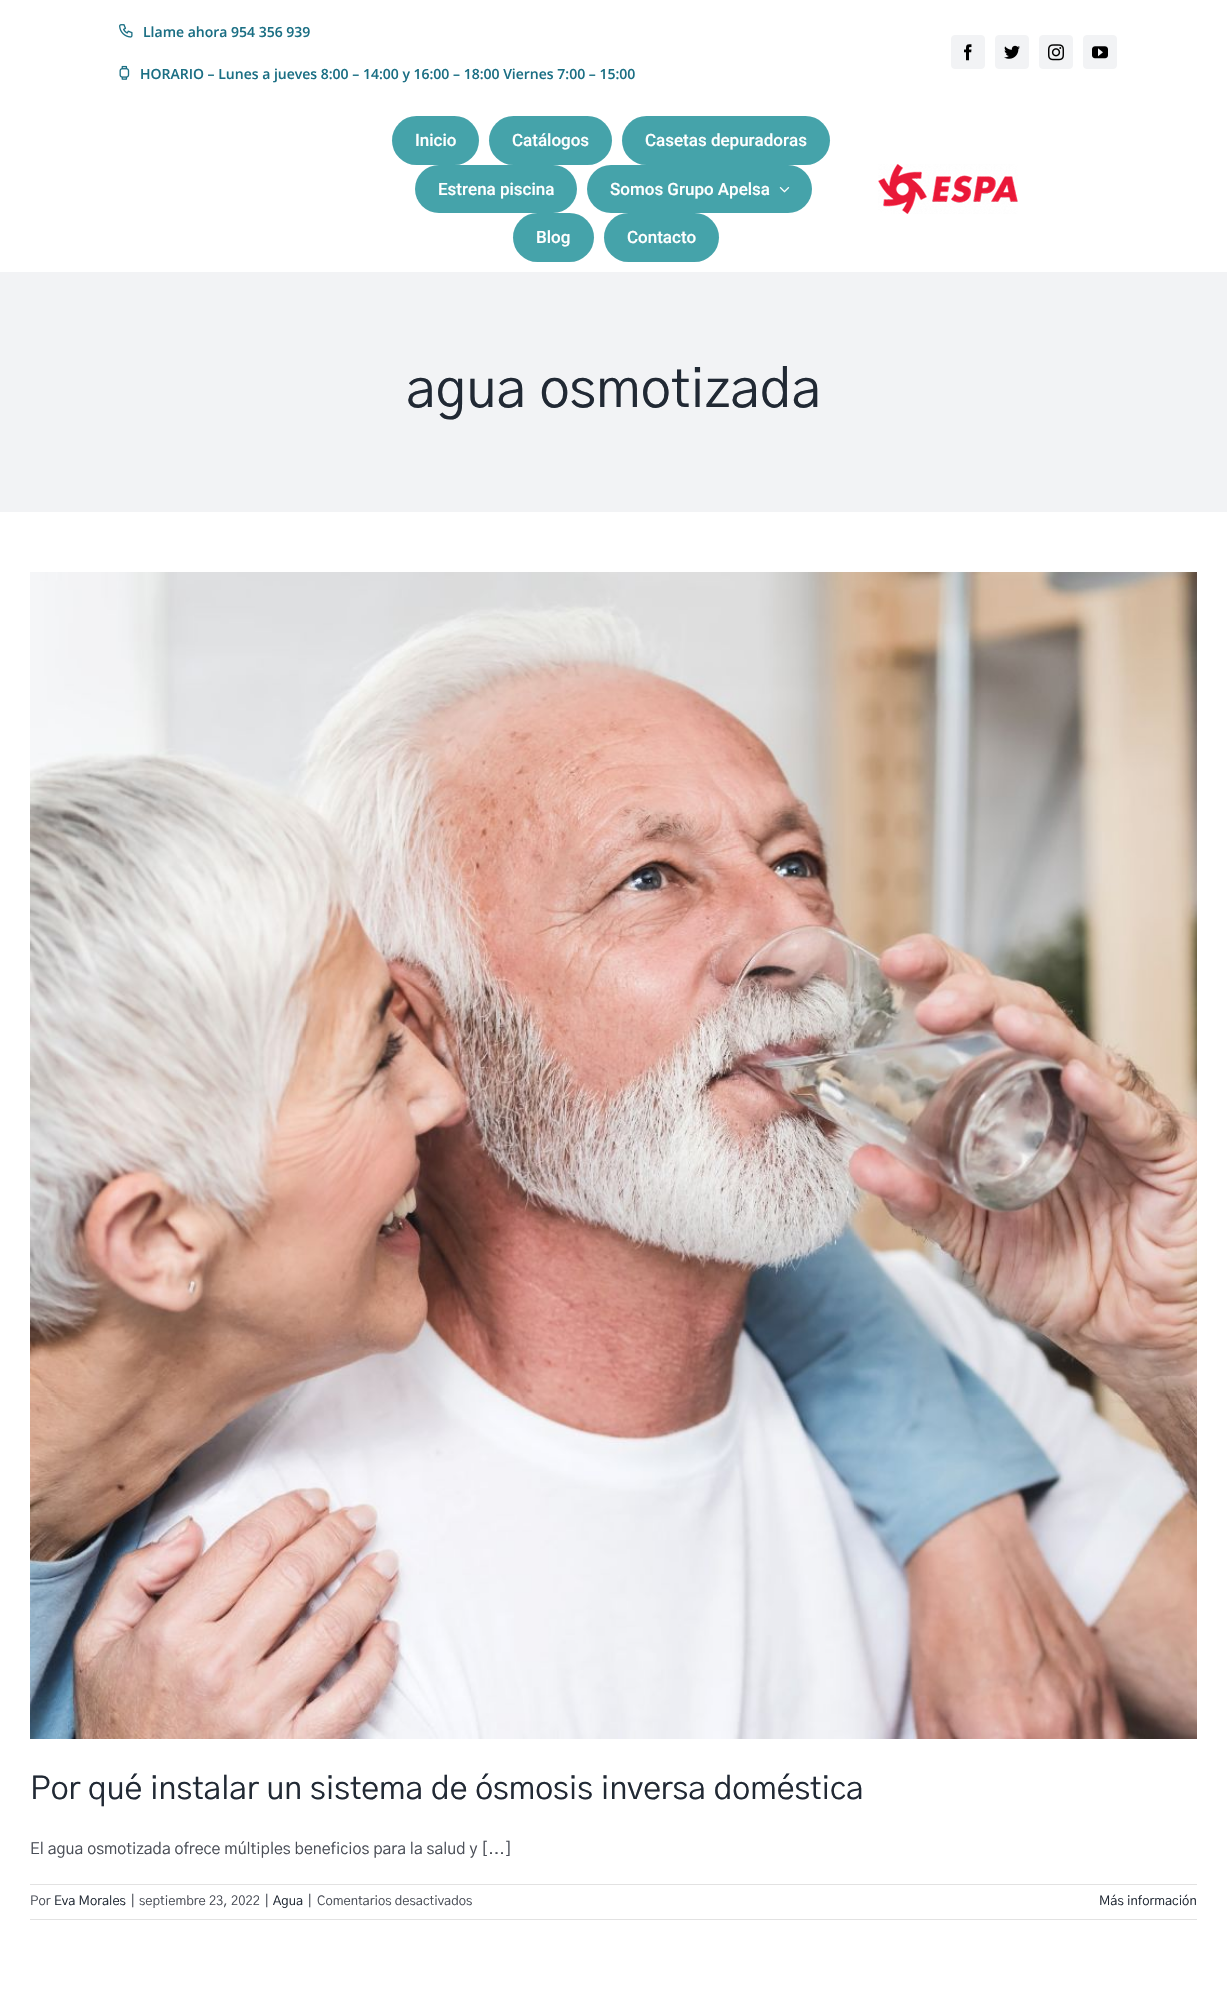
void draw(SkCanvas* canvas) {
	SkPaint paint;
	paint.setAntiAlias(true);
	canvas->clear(0xffffffff);
	canvas->drawImageRect(SkImages::DeferredFromEncodedData(SkData::MakeFromFileName("img1.png")), SkRect::MakeXYWH(119, 24, 14, 14), SkSamplingOptions());
	SkFont f1(fontMgr->matchFamilyStyle("Open Sans", SkFontStyle(600, SkFontStyle::kNormal_Width, SkFontStyle::kUpright_Slant)), 14);
	f1.setSubpixel(true);
	paint.setColor(0xff1b6f84);
	canvas->drawString("Llame ahora 954 356 939", 143, 37, f1, paint);
	canvas->drawImageRect(SkImages::DeferredFromEncodedData(SkData::MakeFromFileName("img2.png")), SkRect::MakeXYWH(119, 65, 11, 15), SkSamplingOptions());
	canvas->drawString("HORARIO – Lunes a jueves 8:00 – 14:00 y 16:00 – 18:00 Viernes 7:00 – 15:00", 140, 79, f1, paint);
	paint.setColor(0xfff2f3f5);
	canvas->drawRoundRect(SkRect::MakeXYWH(951.5, 35.5, 33, 33), 3.5, 3.5, paint);
	paint.setStroke(true);
	paint.setStrokeWidth(1);
	canvas->drawRoundRect(SkRect::MakeXYWH(951.5, 35.5, 33, 33), 3.5, 3.5, paint);
	canvas->drawImageRect(SkImages::DeferredFromEncodedData(SkData::MakeFromFileName("img3.png")), SkRect::MakeXYWH(964, 44, 8, 17), SkSamplingOptions());
	paint.setStroke(false);
	canvas->drawRoundRect(SkRect::MakeXYWH(995.5, 35.5, 33, 33), 3.5, 3.5, paint);
	paint.setStroke(true);
	canvas->drawRoundRect(SkRect::MakeXYWH(995.5, 35.5, 33, 33), 3.5, 3.5, paint);
	canvas->drawImageRect(SkImages::DeferredFromEncodedData(SkData::MakeFromFileName("img4.png")), SkRect::MakeXYWH(1004, 45, 16, 14), SkSamplingOptions());
	paint.setStroke(false);
	canvas->drawRoundRect(SkRect::MakeXYWH(1039.5, 35.5, 33, 33), 3.5, 3.5, paint);
	paint.setStroke(true);
	canvas->drawRoundRect(SkRect::MakeXYWH(1039.5, 35.5, 33, 33), 3.5, 3.5, paint);
	canvas->drawImageRect(SkImages::DeferredFromEncodedData(SkData::MakeFromFileName("img5.png")), SkRect::MakeXYWH(1048, 44, 16, 17), SkSamplingOptions());
	paint.setStroke(false);
	canvas->drawRoundRect(SkRect::MakeXYWH(1083.5, 35.5, 33, 33), 3.5, 3.5, paint);
	paint.setStroke(true);
	canvas->drawRoundRect(SkRect::MakeXYWH(1083.5, 35.5, 33, 33), 3.5, 3.5, paint);
	canvas->drawImageRect(SkImages::DeferredFromEncodedData(SkData::MakeFromFileName("img6.png")), SkRect::MakeXYWH(1092, 46, 16, 13), SkSamplingOptions());
	paint.setStroke(false);
	paint.setColor(0xff45a3aa);
	canvas->drawRoundRect(SkRect::MakeXYWH(392, 116, 87, 49), 24.5, 24.5, paint);
	SkFont f2(fontMgr->matchFamilyStyle("Roboto", SkFontStyle(500, SkFontStyle::kNormal_Width, SkFontStyle::kUpright_Slant)), 17);
	f2.setSubpixel(true);
	paint.setColor(0xffffffff);
	canvas->drawString("Inicio", 415, 146, f2, paint);
	paint.setColor(0xff45a3aa);
	canvas->drawRoundRect(SkRect::MakeXYWH(489, 116, 123, 49), 24.5, 24.5, paint);
	paint.setColor(0xffffffff);
	canvas->drawString("Catálogos", 512, 146, f2, paint);
	paint.setColor(0xff45a3aa);
	canvas->drawRoundRect(SkRect::MakeXYWH(622, 116, 208, 49), 24.5, 24.5, paint);
	paint.setColor(0xffffffff);
	canvas->drawString("Casetas depuradoras", 645, 146, f2, paint);
	paint.setColor(0xff45a3aa);
	canvas->drawRoundRect(SkRect::MakeXYWH(415, 165, 162, 48), 24, 24, paint);
	paint.setColor(0xffffffff);
	canvas->drawString("Estrena piscina", 438, 195, f2, paint);
	paint.setColor(0xff45a3aa);
	canvas->drawRoundRect(SkRect::MakeXYWH(587, 165, 225, 48), 24, 24, paint);
	paint.setColor(0xffffffff);
	canvas->drawString("Somos Grupo Apelsa", 610, 195, f2, paint);
	canvas->drawImageRect(SkImages::DeferredFromEncodedData(SkData::MakeFromFileName("img7.png")), SkRect::MakeXYWH(779, 187, 11, 6), SkSamplingOptions());
	paint.setColor(0xff45a3aa);
	canvas->drawRoundRect(SkRect::MakeXYWH(513, 213, 81, 49), 24.5, 24.5, paint);
	paint.setColor(0xffffffff);
	canvas->drawString("Blog", 536, 243, f2, paint);
	paint.setColor(0xff45a3aa);
	canvas->drawRoundRect(SkRect::MakeXYWH(604, 213, 115, 49), 24.5, 24.5, paint);
	paint.setColor(0xffffffff);
	canvas->drawString("Contacto", 627, 243, f2, paint);
	canvas->drawImageRect(SkImages::DeferredFromEncodedData(SkData::MakeFromFileName("img8.png")), SkRect::MakeXYWH(878, 164, 140, 50), SkSamplingOptions());
	paint.setColor(0xfff2f3f5);
	canvas->drawRect(SkRect::MakeXYWH(0, 272, 1227, 240), paint);
	SkFont f3(fontMgr->matchFamilyStyle("Gothic A1", SkFontStyle::Normal()), 54);
	f3.setSubpixel(true);
	paint.setColor(0xff212934);
	canvas->drawString("agua osmotizada", 406, 407, f3, paint);
	canvas->drawImageRect(SkImages::DeferredFromEncodedData(SkData::MakeFromFileName("img9.png")), SkRect::MakeXYWH(30, 572, 1167, 1167), SkSamplingOptions());
	SkFont f4(fontMgr->matchFamilyStyle("Gothic A1", SkFontStyle::Normal()), 32);
	f4.setSubpixel(true);
	canvas->drawString("Por qué instalar un sistema de ósmosis inversa doméstica", 30, 1799, f4, paint);
	SkFont f5(fontMgr->matchFamilyStyle("Gothic A1", SkFontStyle::Normal()), 16);
	f5.setSubpixel(true);
	paint.setColor(0xff4a4e57);
	canvas->drawString("El agua osmotizada ofrece múltiples beneficios para la salud y [...]", 30, 1854, f5, paint);
	paint.setColor(0xffe2e2e2);
	canvas->drawRect(SkRect::MakeXYWH(30, 1884, 1167, 1), paint);
	canvas->drawRect(SkRect::MakeXYWH(30, 1919, 1167, 1), paint);
	SkFont f6(fontMgr->matchFamilyStyle("Gothic A1", SkFontStyle::Normal()), 13);
	f6.setSubpixel(true);
	paint.setColor(0xff4a4e57);
	canvas->drawString("Por", 30, 1905, f6, paint);
	paint.setColor(0xff212934);
	canvas->drawString("Eva Morales", 54, 1905, f6, paint);
	paint.setColor(0xff4a4e57);
	canvas->drawString("|", 131, 1905, f6, paint);
	canvas->drawString("septiembre 23, 2022", 139, 1905, f6, paint);
	canvas->drawString("|", 265, 1905, f6, paint);
	paint.setColor(0xff212934);
	canvas->drawString("Agua", 273, 1905, f6, paint);
	paint.setColor(0xff4a4e57);
	canvas->drawString("|", 308, 1905, f6, paint);
	canvas->drawString("Comentarios desactivados", 317, 1905, f6, paint);
	paint.setColor(0xff212934);
	canvas->drawString("Más información", 1099, 1905, f6, paint);
}
